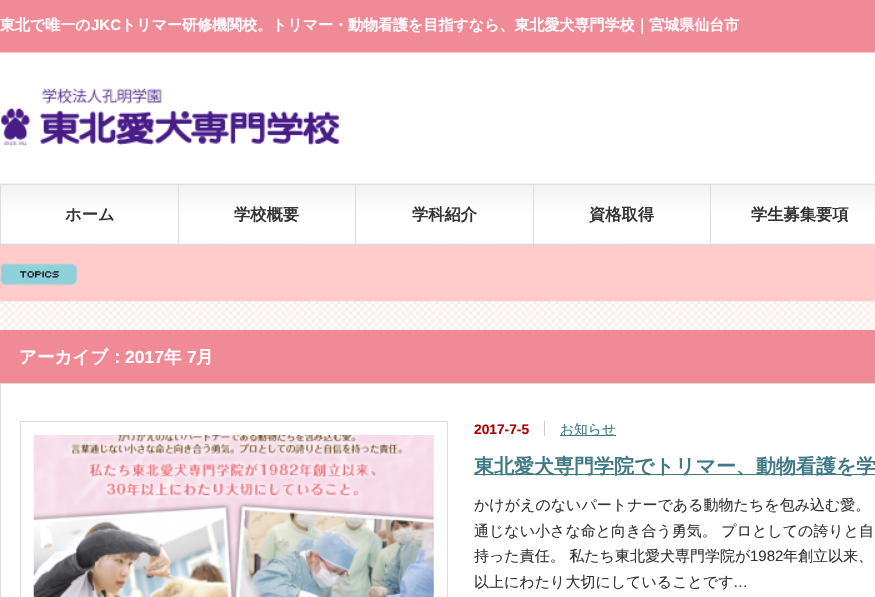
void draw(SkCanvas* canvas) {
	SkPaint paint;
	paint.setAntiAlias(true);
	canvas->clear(0xffffffff);
	canvas->drawImageRect(SkImages::DeferredFromEncodedData(SkData::MakeFromFileName("img1.png")), SkRect::MakeXYWH(0, 301, 875, 29), SkSamplingOptions());
	canvas->drawImageRect(SkImages::DeferredFromEncodedData(SkData::MakeFromFileName("img2.png")), SkRect::MakeXYWH(0, 0, 875, 302), SkSamplingOptions());
	SkFont f1(fontMgr->matchFamilyStyle("WenQuanYi Zen Hei", SkFontStyle::Bold()), 15);
	f1.setSubpixel(true);
	paint.setColor(0xffffffff);
	canvas->drawString("東北で唯一の", 0, 30, f1, paint);
	SkFont f2(fontMgr->matchFamilyStyle("Liberation Sans", SkFontStyle::Bold()), 15);
	f2.setSubpixel(true);
	canvas->drawString("JKC", 91, 30, f2, paint);
	canvas->drawString("トリマー研修機関校。トリマー・動物看護を目指すなら、東北愛犬専門学校｜宮城県仙台市", 121, 30, f1, paint);
	canvas->drawImageRect(SkImages::DeferredFromEncodedData(SkData::MakeFromFileName("img3.png")), SkRect::MakeXYWH(1, 88, 338, 58), SkSamplingOptions());
	paint.setColor(0xffdddddd);
	canvas->drawRect(SkRect::MakeXYWH(0, 185, 1, 59), paint);
	SkFont f3(fontMgr->matchFamilyStyle("WenQuanYi Zen Hei", SkFontStyle::Bold()), 16.25);
	f3.setSubpixel(true);
	paint.setColor(0xff333333);
	canvas->drawString("ホーム", 65, 220, f3, paint);
	paint.setColor(0xffdddddd);
	canvas->drawRect(SkRect::MakeXYWH(178, 185, 1, 59), paint);
	paint.setColor(0xff333333);
	canvas->drawString("学校概要", 234, 220, f3, paint);
	paint.setColor(0xffdddddd);
	canvas->drawRect(SkRect::MakeXYWH(355, 185, 1, 59), paint);
	paint.setColor(0xff333333);
	canvas->drawString("学科紹介", 412, 220, f3, paint);
	paint.setColor(0xffdddddd);
	canvas->drawRect(SkRect::MakeXYWH(533, 185, 1, 59), paint);
	paint.setColor(0xff333333);
	canvas->drawString("資格取得", 589, 220, f3, paint);
	paint.setColor(0xffdddddd);
	canvas->drawRect(SkRect::MakeXYWH(710, 185, 1, 59), paint);
	paint.setColor(0xff333333);
	canvas->drawString("学生募集要項", 751, 220, f3, paint);
	canvas->drawImageRect(SkImages::DeferredFromEncodedData(SkData::MakeFromFileName("img4.png")), SkRect::MakeXYWH(0, 263, 78, 22), SkSamplingOptions());
	paint.setColor(0xfff08a97);
	canvas->drawRect(SkRect::MakeXYWH(0, 330, 875, 53), paint);
	SkFont f4(fontMgr->matchFamilyStyle("WenQuanYi Zen Hei", SkFontStyle::Bold()), 17.5);
	f4.setSubpixel(true);
	paint.setColor(0xffffffff);
	canvas->drawString("アーカイブ：", 19, 363, f4, paint);
	SkFont f5(fontMgr->matchFamilyStyle("Liberation Sans", SkFontStyle::Bold()), 17.5);
	f5.setSubpixel(true);
	canvas->drawString("2017", 125, 363, f5, paint);
	canvas->drawString("年", 164, 363, f4, paint);
	canvas->drawString("7", 187, 363, f5, paint);
	canvas->drawString("月", 196, 363, f4, paint);
	paint.setStroke(true);
	paint.setStrokeWidth(1);
	paint.setColor(0xffdddddd);
	canvas->drawRect(SkRect::MakeXYWH(0.5, 383.5, 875, 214), paint);
	canvas->drawRect(SkRect::MakeXYWH(20.5, 421.5, 427, 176), paint);
	canvas->drawImageRect(SkImages::DeferredFromEncodedData(SkData::MakeFromFileName("img5.png")), SkRect::MakeXYWH(33, 435, 401, 162), SkSamplingOptions());
	paint.setStroke(false);
	paint.setColor(0xffcccccc);
	canvas->drawRect(SkRect::MakeXYWH(544, 421, 1, 15), paint);
	SkFont f6(fontMgr->matchFamilyStyle("Liberation Sans", SkFontStyle::Bold()), 13.75);
	f6.setSubpixel(true);
	paint.setColor(0xffb20000);
	canvas->drawString("2017-7-5", 474, 434, f6, paint);
	paint.setColor(0xff3f7985);
	canvas->drawRect(SkRect::MakeXYWH(560, 435, 56, 1), paint);
	SkFont f7(fontMgr->matchFamilyStyle("WenQuanYi Zen Hei", SkFontStyle(500, SkFontStyle::kNormal_Width, SkFontStyle::kUpright_Slant)), 13.75);
	f7.setSubpixel(true);
	canvas->drawString("お知らせ", 560, 434, f7, paint);
	canvas->drawRect(SkRect::MakeXYWH(474, 474, 401, 1), paint);
	SkFont f8(fontMgr->matchFamilyStyle("WenQuanYi Zen Hei", SkFontStyle::Bold()), 20);
	f8.setSubpixel(true);
	canvas->drawString("東北愛犬専門学院でトリマー、動物看護を学", 474, 473, f8, paint);
	SkFont f9(fontMgr->matchFamilyStyle("WenQuanYi Zen Hei", SkFontStyle(500, SkFontStyle::kNormal_Width, SkFontStyle::kUpright_Slant)), 15);
	f9.setSubpixel(true);
	paint.setColor(0xff333333);
	canvas->drawString("かけがえのないパートナーである動物たちを包み込む愛。", 474, 510, f9, paint);
	canvas->drawString("通じない小さな命と向き合う勇気。 プロとしての誇りと自", 474, 536, f9, paint);
	canvas->drawString("持った責任。 私たち東北愛犬専門学院が", 474, 561, f9, paint);
	SkFont f10(fontMgr->matchFamilyStyle("Liberation Sans", SkFontStyle::Normal()), 15);
	f10.setSubpixel(true);
	canvas->drawString("1982", 750, 561, f10, paint);
	canvas->drawString("年創立以来、", 783, 561, f9, paint);
	canvas->drawString("以上にわたり大切にしていることです", 474, 587, f9, paint);
	canvas->drawString("…", 733, 587, f10, paint);
}
